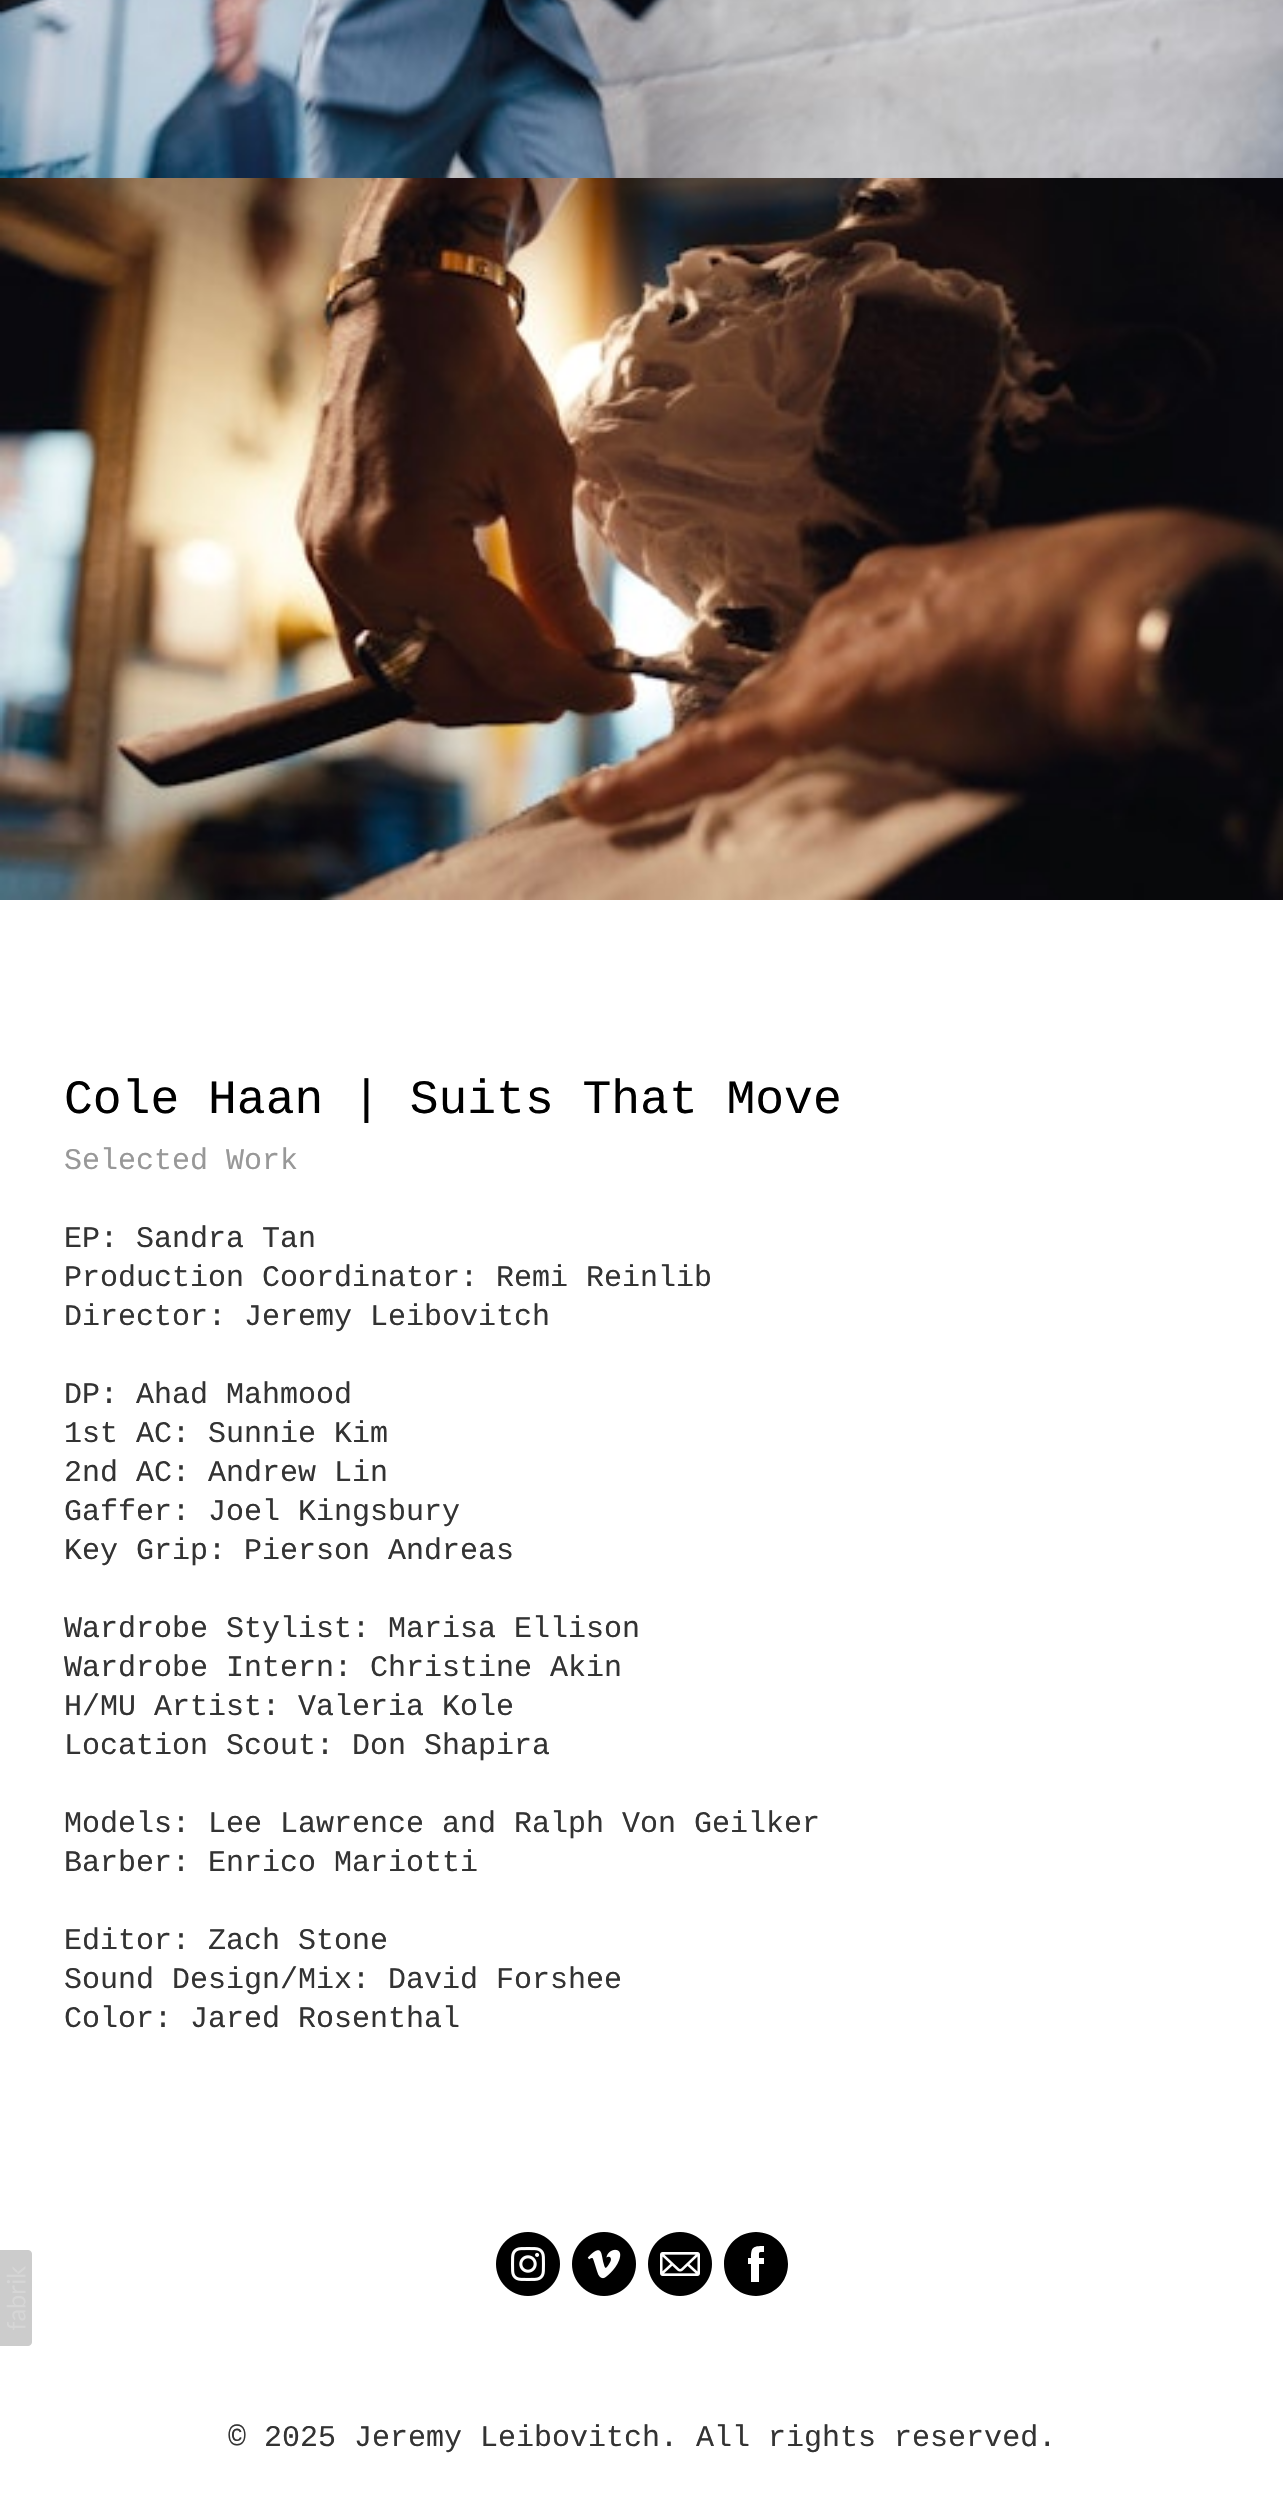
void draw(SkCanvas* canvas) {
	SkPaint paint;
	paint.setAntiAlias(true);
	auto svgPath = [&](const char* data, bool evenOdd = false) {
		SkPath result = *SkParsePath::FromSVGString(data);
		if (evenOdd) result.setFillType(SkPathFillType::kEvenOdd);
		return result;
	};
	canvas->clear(0xffffffff);
	canvas->drawImageRect(SkImages::DeferredFromEncodedData(SkData::MakeFromFileName("img1.png")), SkRect::MakeXYWH(0, 2250, 32, 96), SkSamplingOptions());
	canvas->drawImageRect(SkImages::DeferredFromEncodedData(SkData::MakeFromFileName("img2.png")), SkRect::MakeXYWH(0, 0, 1283, 178), SkSamplingOptions());
	canvas->drawImageRect(SkImages::DeferredFromEncodedData(SkData::MakeFromFileName("img3.png")), SkRect::MakeXYWH(0, 178, 1283, 722), SkSamplingOptions());
	SkFont f1(fontMgr->matchFamilyStyle("Liberation Mono", SkFontStyle::Normal()), 48);
	f1.setSubpixel(true);
	paint.setColor(0xff000000);
	canvas->drawString("Cole Haan | Suits That Move", 64, 1113, f1, paint);
	SkFont f2(fontMgr->matchFamilyStyle("Liberation Mono", SkFontStyle::Normal()), 30);
	f2.setSubpixel(true);
	paint.setColor(0xff989898);
	canvas->drawString("Selected Work", 64, 1169, f2, paint);
	paint.setColor(0xff333333);
	canvas->drawString("EP: Sandra Tan", 64, 1247, f2, paint);
	canvas->drawString("Production Coordinator: Remi Reinlib", 64, 1286, f2, paint);
	canvas->drawString("Director: Jeremy Leibovitch", 64, 1325, f2, paint);
	canvas->drawString("DP: Ahad Mahmood", 64, 1403, f2, paint);
	canvas->drawString("1st AC: Sunnie Kim", 64, 1442, f2, paint);
	canvas->drawString("2nd AC: Andrew Lin", 64, 1481, f2, paint);
	canvas->drawString("Gaffer: Joel Kingsbury", 64, 1520, f2, paint);
	canvas->drawString("Key Grip: Pierson Andreas", 64, 1559, f2, paint);
	canvas->drawString("Wardrobe Stylist: Marisa Ellison", 64, 1637, f2, paint);
	canvas->drawString("Wardrobe Intern: Christine Akin", 64, 1676, f2, paint);
	canvas->drawString("H/MU Artist: Valeria Kole", 64, 1715, f2, paint);
	canvas->drawString("Location Scout: Don Shapira", 64, 1754, f2, paint);
	canvas->drawString("Models: Lee Lawrence and Ralph Von Geilker", 64, 1832, f2, paint);
	canvas->drawString("Barber: Enrico Mariotti", 64, 1871, f2, paint);
	canvas->drawString("Editor: Zach Stone", 64, 1949, f2, paint);
	canvas->drawString("Sound Design/Mix: David Forshee", 64, 1988, f2, paint);
	canvas->drawString("Color: Jared Rosenthal", 64, 2027, f2, paint);
	canvas->drawImageRect(SkImages::DeferredFromEncodedData(SkData::MakeFromFileName("img4.png")), SkRect::MakeXYWH(496, 2232, 64, 64), SkSamplingOptions());
	canvas->drawImageRect(SkImages::DeferredFromEncodedData(SkData::MakeFromFileName("img5.png")), SkRect::MakeXYWH(572, 2232, 64, 64), SkSamplingOptions());
	canvas->drawImageRect(SkImages::DeferredFromEncodedData(SkData::MakeFromFileName("img6.png")), SkRect::MakeXYWH(648, 2232, 64, 64), SkSamplingOptions());
	paint.setColor(0xff000000);
	canvas->drawPath(svgPath("M756 2232C738 2232 724 2246 724 2264C724 2282 738 2296 756 2296C774 2296 788 2282 788 2264C788 2246 774 2232 756 2232ZM764 2258H759C759 2252 758 2252 764 2252V2246C753 2246 751 2247 751 2258H748V2264H751V2282H759V2264H764Z", true), paint);
	paint.setColor(0xff333333);
	canvas->drawString("© 2025 Jeremy Leibovitch. All rights reserved.", 228, 2446, f2, paint);
}
